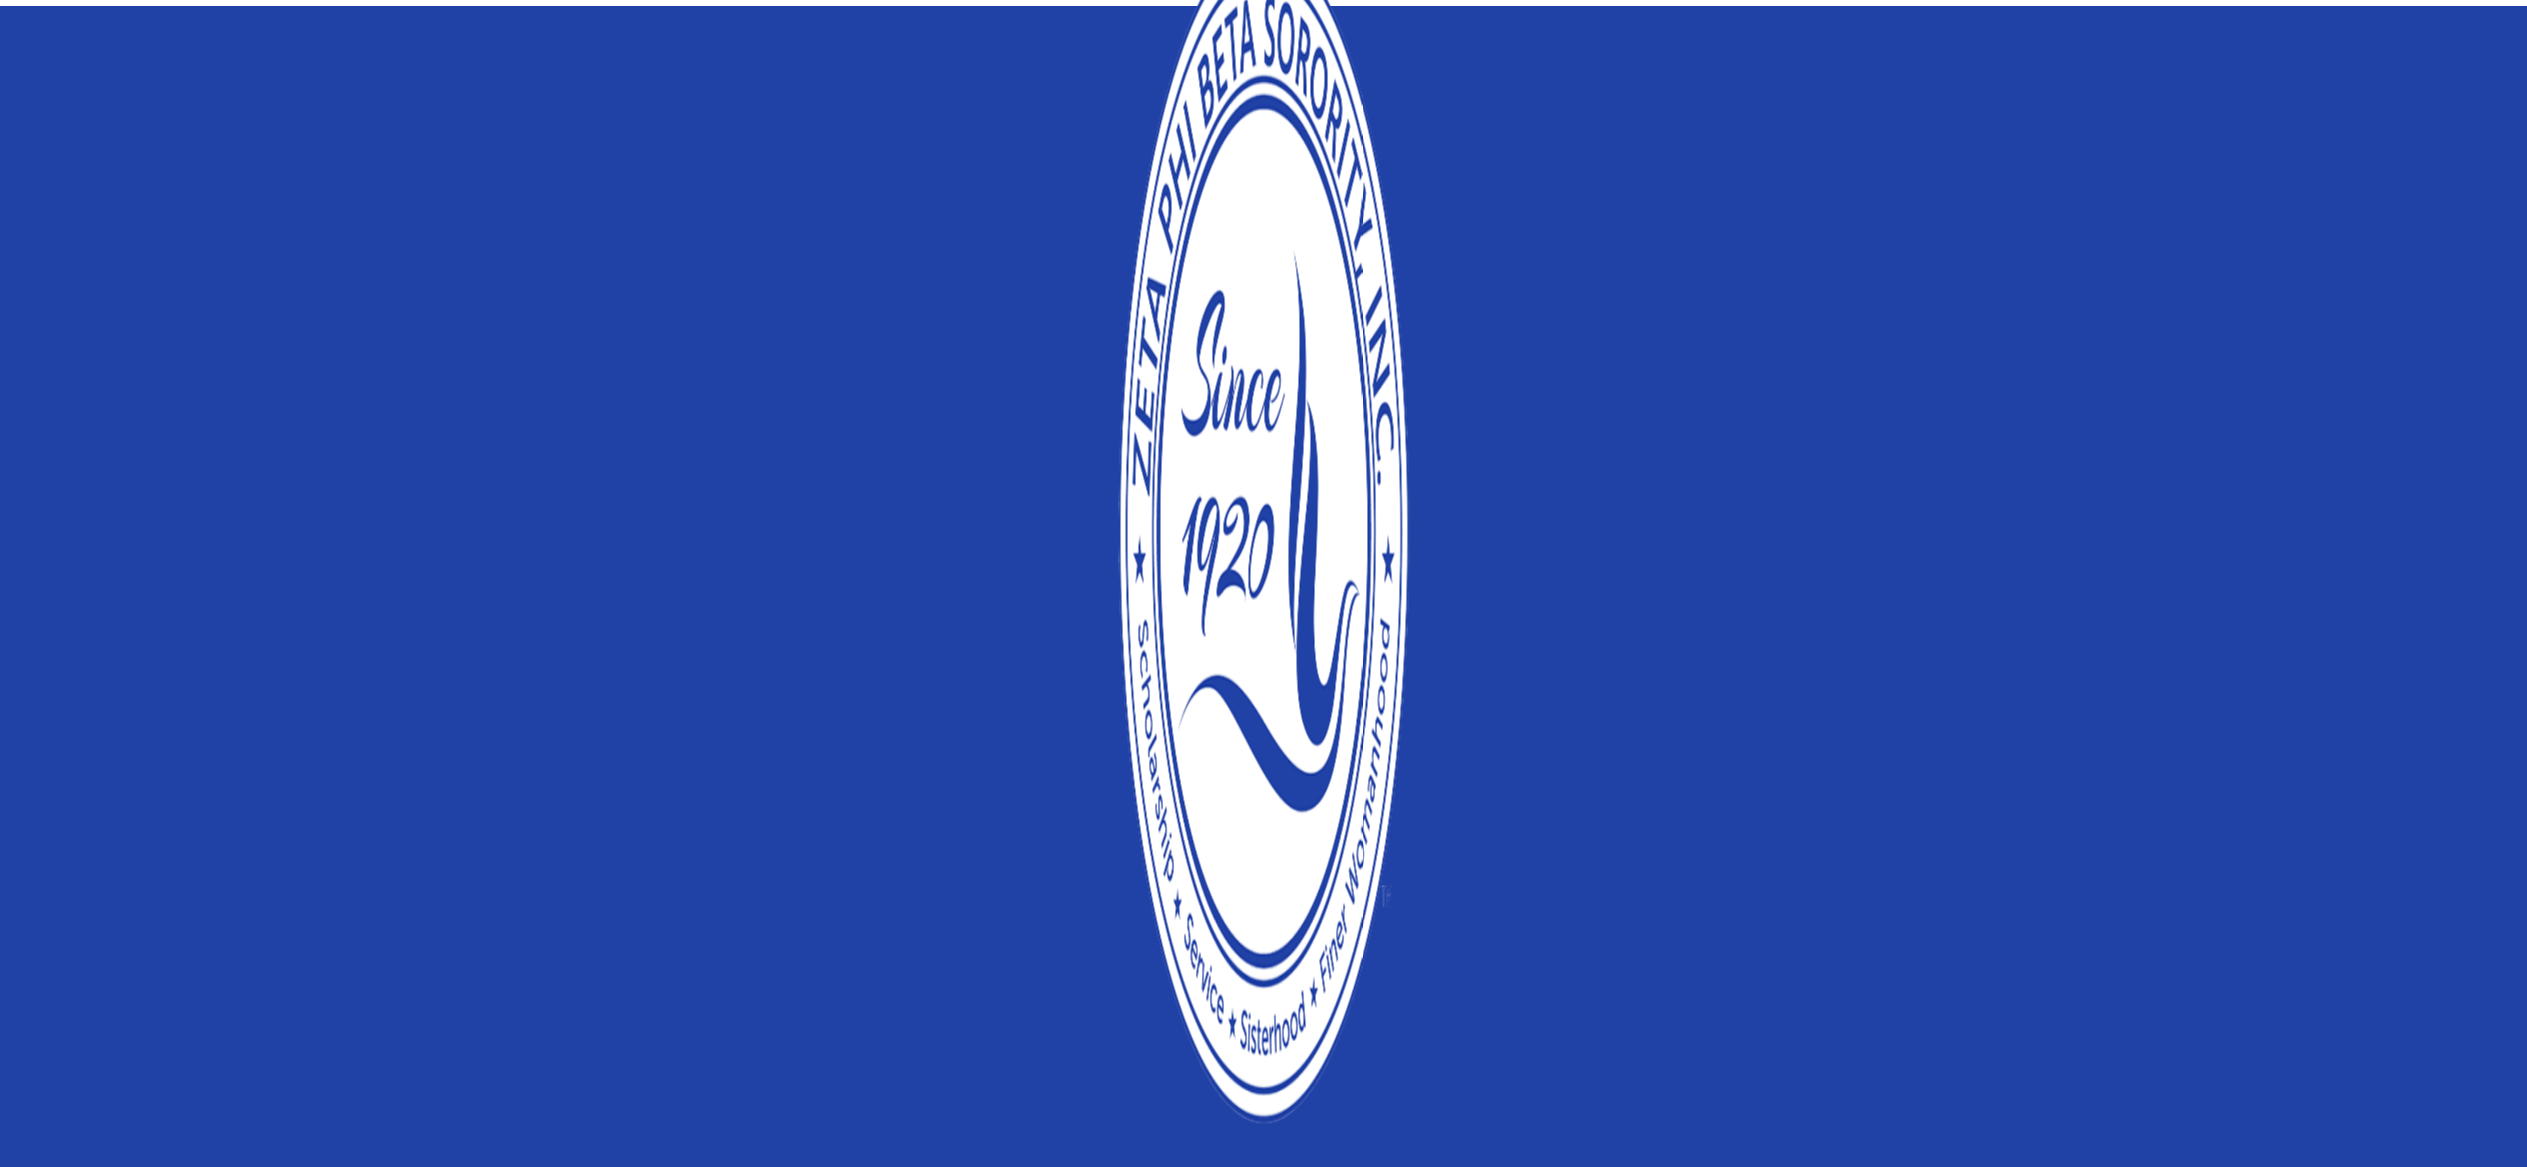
void draw(SkCanvas* canvas) {
	SkPaint paint;
	paint.setAntiAlias(true);
	canvas->clear(0xff2041a5);
	paint.setColor(0xffffffff);
	canvas->drawRect(SkRect::MakeXYWH(0, 0, 2527, 6), paint);
	canvas->drawImageRect(SkImages::DeferredFromEncodedData(SkData::MakeFromFileName("img1.png")), SkRect::MakeXYWH(1118, 0, 292, 1124), SkSamplingOptions());
}
